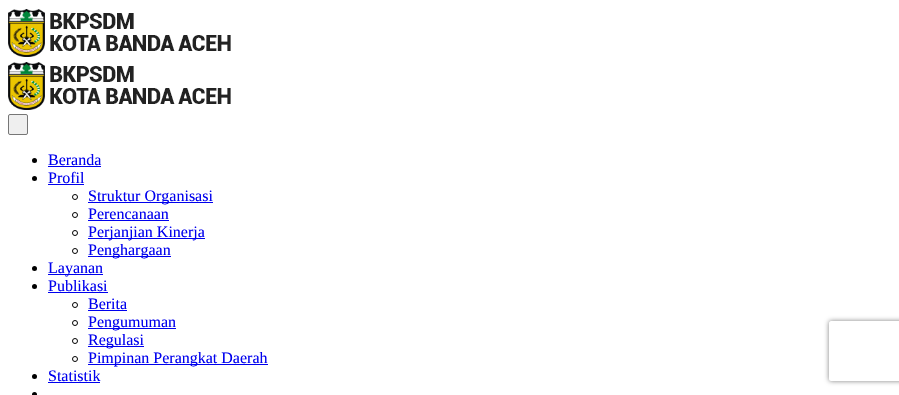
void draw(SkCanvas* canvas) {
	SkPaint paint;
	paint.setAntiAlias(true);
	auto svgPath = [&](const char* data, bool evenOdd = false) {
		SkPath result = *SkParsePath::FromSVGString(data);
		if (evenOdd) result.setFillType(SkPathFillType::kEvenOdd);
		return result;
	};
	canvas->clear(0xffffffff);
	canvas->drawImageRect(SkImages::DeferredFromEncodedData(SkData::MakeFromFileName("img1.png")), SkRect::MakeXYWH(8, 9, 223, 48), SkSamplingOptions());
	canvas->drawImageRect(SkImages::DeferredFromEncodedData(SkData::MakeFromFileName("img1.png")), SkRect::MakeXYWH(8, 62, 223, 48), SkSamplingOptions());
	paint.setColor(0xffefefef);
	canvas->drawRoundRect(SkRect::MakeXYWH(8.5, 114.5, 19, 20), 1.5, 1.5, paint);
	paint.setStroke(true);
	paint.setStrokeWidth(1);
	paint.setColor(0xff767676);
	canvas->drawRoundRect(SkRect::MakeXYWH(8.5, 114.5, 19, 20), 1.5, 1.5, paint);
	paint.setStroke(false);
	paint.setColor(0xff000000);
	canvas->drawCircle(34.5, 160.5, 2.5, paint);
	SkFont f1(fontMgr->matchFamilyStyle("Liberation Serif", SkFontStyle::Normal()), 16);
	f1.setSubpixel(true);
	paint.setColor(0xff0000ee);
	canvas->drawString("Beranda", 48, 165, f1, paint);
	canvas->drawRect(SkRect::MakeXYWH(48, 166, 53, 1), paint);
	paint.setColor(0xff000000);
	canvas->drawCircle(34.5, 178.5, 2.5, paint);
	paint.setColor(0xff0000ee);
	canvas->drawString("Profil", 48, 183, f1, paint);
	canvas->drawRect(SkRect::MakeXYWH(48, 184, 36, 1), paint);
	paint.setStroke(true);
	paint.setColor(0xff000000);
	canvas->drawCircle(75, 197, 2.5, paint);
	paint.setStroke(false);
	paint.setColor(0xff0000ee);
	canvas->drawRect(SkRect::MakeXYWH(88, 202, 125, 1), paint);
	canvas->drawString("Struktur Organisasi", 88, 201, f1, paint);
	paint.setStroke(true);
	paint.setColor(0xff000000);
	canvas->drawCircle(75, 215, 2.5, paint);
	paint.setStroke(false);
	paint.setColor(0xff0000ee);
	canvas->drawString("Perencanaan", 88, 219, f1, paint);
	canvas->drawRect(SkRect::MakeXYWH(88, 220, 81, 1), paint);
	paint.setStroke(true);
	paint.setColor(0xff000000);
	canvas->drawCircle(75, 233, 2.5, paint);
	paint.setStroke(false);
	paint.setColor(0xff0000ee);
	canvas->drawRect(SkRect::MakeXYWH(88, 238, 117, 1), paint);
	canvas->drawString("Perjanjian Kinerja", 88, 237, f1, paint);
	paint.setStroke(true);
	paint.setColor(0xff000000);
	canvas->drawCircle(75, 251, 2.5, paint);
	paint.setStroke(false);
	paint.setColor(0xff0000ee);
	canvas->drawRect(SkRect::MakeXYWH(88, 256, 83, 1), paint);
	canvas->drawString("Penghargaan", 88, 255, f1, paint);
	paint.setColor(0xff000000);
	canvas->drawCircle(34.5, 268.5, 2.5, paint);
	paint.setColor(0xff0000ee);
	canvas->drawRect(SkRect::MakeXYWH(48, 274, 55, 1), paint);
	canvas->drawString("Layanan", 48, 273, f1, paint);
	paint.setColor(0xff000000);
	canvas->drawCircle(34.5, 286.5, 2.5, paint);
	paint.setColor(0xff0000ee);
	canvas->drawString("Publikasi", 48, 291, f1, paint);
	canvas->drawRect(SkRect::MakeXYWH(48, 292, 60, 1), paint);
	paint.setStroke(true);
	paint.setColor(0xff000000);
	canvas->drawCircle(75, 305, 2.5, paint);
	paint.setStroke(false);
	paint.setColor(0xff0000ee);
	canvas->drawString("Berita", 88, 309, f1, paint);
	canvas->drawRect(SkRect::MakeXYWH(88, 310, 39, 1), paint);
	paint.setStroke(true);
	paint.setColor(0xff000000);
	canvas->drawCircle(75, 323, 2.5, paint);
	paint.setStroke(false);
	paint.setColor(0xff0000ee);
	canvas->drawRect(SkRect::MakeXYWH(88, 328, 88, 1), paint);
	canvas->drawString("Pengumuman", 88, 327, f1, paint);
	paint.setStroke(true);
	paint.setColor(0xff000000);
	canvas->drawCircle(75, 341, 2.5, paint);
	paint.setStroke(false);
	paint.setColor(0xff0000ee);
	canvas->drawRect(SkRect::MakeXYWH(88, 346, 56, 1), paint);
	canvas->drawString("Regulasi", 88, 345, f1, paint);
	paint.setStroke(true);
	paint.setColor(0xff000000);
	canvas->drawCircle(75, 359, 2.5, paint);
	paint.setStroke(false);
	paint.setColor(0xff0000ee);
	canvas->drawRect(SkRect::MakeXYWH(88, 364, 180, 1), paint);
	canvas->drawString("Pimpinan Perangkat Daerah", 88, 363, f1, paint);
	paint.setColor(0xff000000);
	canvas->drawCircle(34.5, 376.5, 2.5, paint);
	paint.setColor(0xff0000ee);
	canvas->drawString("Statistik", 48, 381, f1, paint);
	canvas->drawRect(SkRect::MakeXYWH(48, 382, 52, 1), paint);
	paint.setColor(0xff000000);
	canvas->drawCircle(34.5, 394.5, 2.5, paint);
	canvas->save();
	canvas->clipPath(svgPath("M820 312H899V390H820ZM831 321H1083C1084 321 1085 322 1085 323V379C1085 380 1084 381 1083 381H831C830 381 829 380 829 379V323C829 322 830 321 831 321Z", true), true);
	paint.setColor(0xff808080);
	paint.setMaskFilter(SkMaskFilter::MakeBlur(kNormal_SkBlurStyle, 2.5));
	canvas->drawRoundRect(SkRect::MakeXYWH(829, 321, 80, 60), 2, 2, paint);
	paint.setMaskFilter(nullptr);
	canvas->restore();
}
